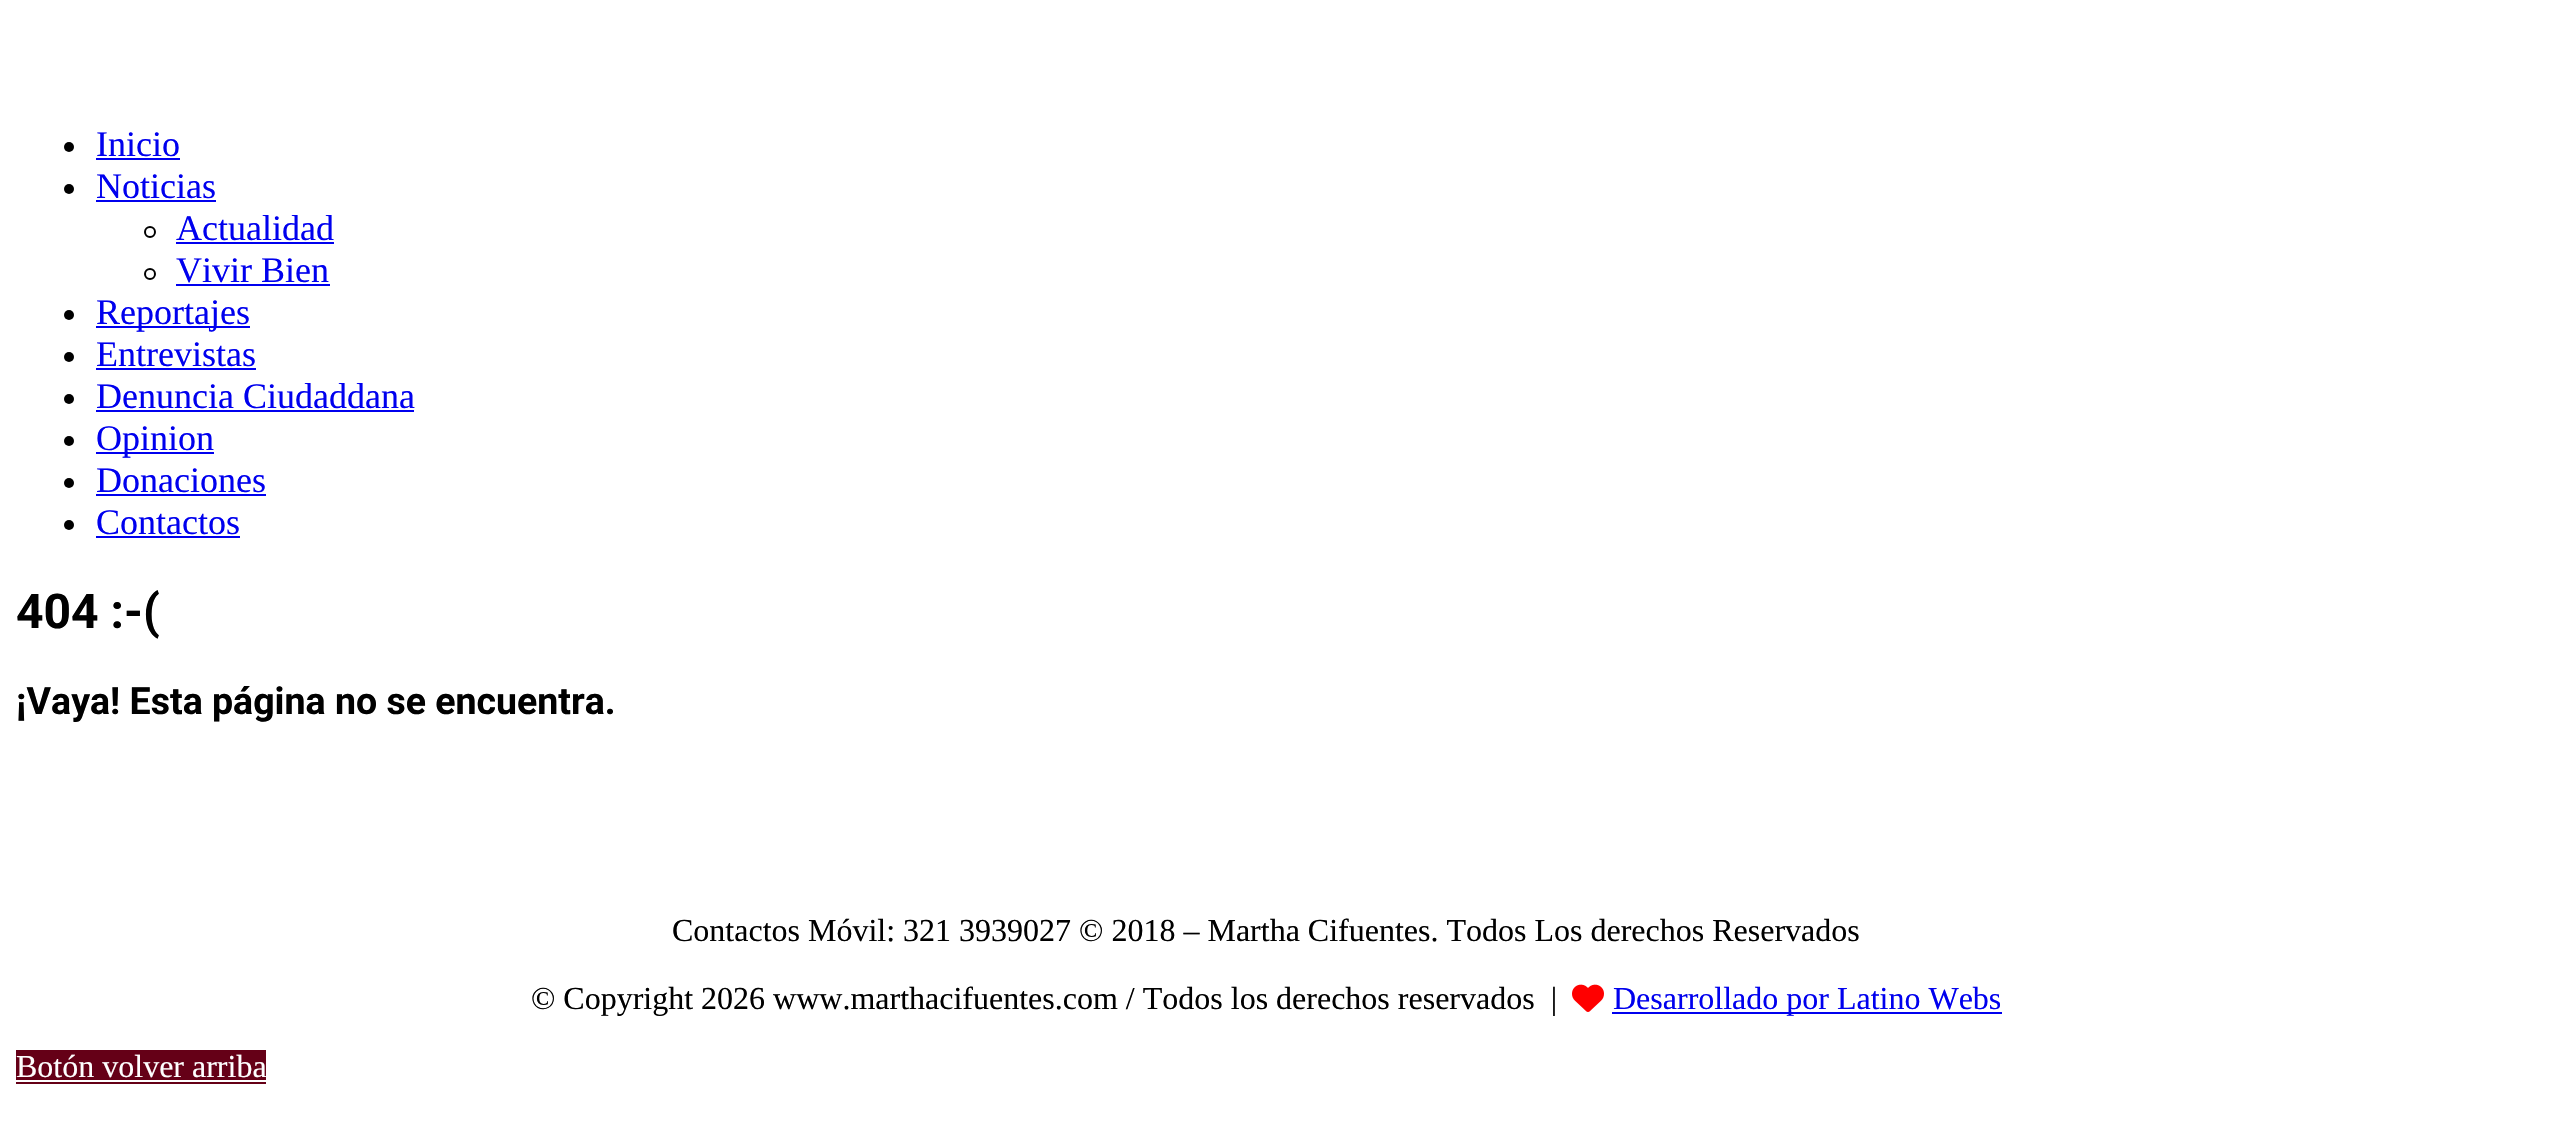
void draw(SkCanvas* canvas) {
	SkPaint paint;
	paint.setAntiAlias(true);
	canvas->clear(0xffffffff);
	paint.setColor(0xff000000);
	canvas->drawCircle(69, 147, 5, paint);
	SkFont f1(fontMgr->matchFamilyStyle("Liberation Serif", SkFontStyle::Normal()), 36);
	f1.setSubpixel(true);
	paint.setColor(0xff0000ee);
	canvas->drawString("Inicio", 96, 156, f1, paint);
	canvas->drawRect(SkRect::MakeXYWH(96, 158, 84, 2), paint);
	paint.setColor(0xff000000);
	canvas->drawCircle(69, 189, 5, paint);
	paint.setColor(0xff0000ee);
	canvas->drawString("Noticias", 96, 198, f1, paint);
	canvas->drawRect(SkRect::MakeXYWH(96, 200, 120, 2), paint);
	paint.setStroke(true);
	paint.setStrokeWidth(2);
	paint.setColor(0xff000000);
	canvas->drawCircle(150, 232, 5, paint);
	paint.setStroke(false);
	paint.setColor(0xff0000ee);
	canvas->drawString("Actualidad", 176, 240, f1, paint);
	canvas->drawRect(SkRect::MakeXYWH(176, 242, 158, 2), paint);
	paint.setStroke(true);
	paint.setColor(0xff000000);
	canvas->drawCircle(150, 274, 5, paint);
	paint.setStroke(false);
	paint.setColor(0xff0000ee);
	canvas->drawString("Vivir Bien", 176, 282, f1, paint);
	canvas->drawRect(SkRect::MakeXYWH(176, 284, 154, 2), paint);
	paint.setColor(0xff000000);
	canvas->drawCircle(69, 315, 5, paint);
	paint.setColor(0xff0000ee);
	canvas->drawRect(SkRect::MakeXYWH(96, 326, 154, 2), paint);
	canvas->drawString("Reportajes", 96, 324, f1, paint);
	paint.setColor(0xff000000);
	canvas->drawCircle(69, 357, 5, paint);
	paint.setColor(0xff0000ee);
	canvas->drawString("Entrevistas", 96, 366, f1, paint);
	canvas->drawRect(SkRect::MakeXYWH(96, 368, 160, 2), paint);
	paint.setColor(0xff000000);
	canvas->drawCircle(69, 399, 5, paint);
	paint.setColor(0xff0000ee);
	canvas->drawString("Denuncia Ciudaddana", 96, 408, f1, paint);
	canvas->drawRect(SkRect::MakeXYWH(96, 410, 318, 2), paint);
	paint.setColor(0xff000000);
	canvas->drawCircle(69, 441, 5, paint);
	paint.setColor(0xff0000ee);
	canvas->drawRect(SkRect::MakeXYWH(96, 452, 118, 2), paint);
	canvas->drawString("Opinion", 96, 450, f1, paint);
	paint.setColor(0xff000000);
	canvas->drawCircle(69, 483, 5, paint);
	paint.setColor(0xff0000ee);
	canvas->drawString("Donaciones", 96, 492, f1, paint);
	canvas->drawRect(SkRect::MakeXYWH(96, 494, 170, 2), paint);
	paint.setColor(0xff000000);
	canvas->drawCircle(69, 525, 5, paint);
	paint.setColor(0xff0000ee);
	canvas->drawString("Contactos", 96, 534, f1, paint);
	canvas->drawRect(SkRect::MakeXYWH(96, 536, 144, 2), paint);
	SkFont f2(fontMgr->matchFamilyStyle("Roboto", SkFontStyle::Bold()), 48);
	f2.setSubpixel(true);
	paint.setColor(0xff000000);
	canvas->drawString("404 :-(", 16, 628, f2, paint);
	SkFont f3(fontMgr->matchFamilyStyle("Roboto", SkFontStyle::Bold()), 37.5);
	f3.setSubpixel(true);
	canvas->drawString("¡Vaya! Esta página no se encuentra.", 16, 714, f3, paint);
	SkFont f4(fontMgr->matchFamilyStyle("Liberation Serif", SkFontStyle::Normal()), 32);
	f4.setSubpixel(true);
	canvas->drawString("Contactos Móvil: 321 3939027 © 2018 – Martha Cifuentes. Todos Los derechos Reservados", 672, 941, f4, paint);
	canvas->drawString("© Copyright 2026 www.marthacifuentes.com / Todos los derechos reservados  |", 531, 1009, f4, paint);
	canvas->drawImageRect(SkImages::DeferredFromEncodedData(SkData::MakeFromFileName("img1.png")), SkRect::MakeXYWH(1572, 984, 32, 28), SkSamplingOptions());
	paint.setColor(0xff0000ee);
	canvas->drawRect(SkRect::MakeXYWH(1612, 1012, 390, 2), paint);
	canvas->drawString("Desarrollado por Latino Webs", 1613, 1009, f4, paint);
	paint.setColor(0xff650017);
	canvas->drawRect(SkRect::MakeXYWH(16, 1050, 250, 34), paint);
	paint.setColor(0xffffffff);
	canvas->drawString("Botón volver arriba", 16, 1077, f4, paint);
	canvas->drawRect(SkRect::MakeXYWH(16, 1080, 250, 2), paint);
}
